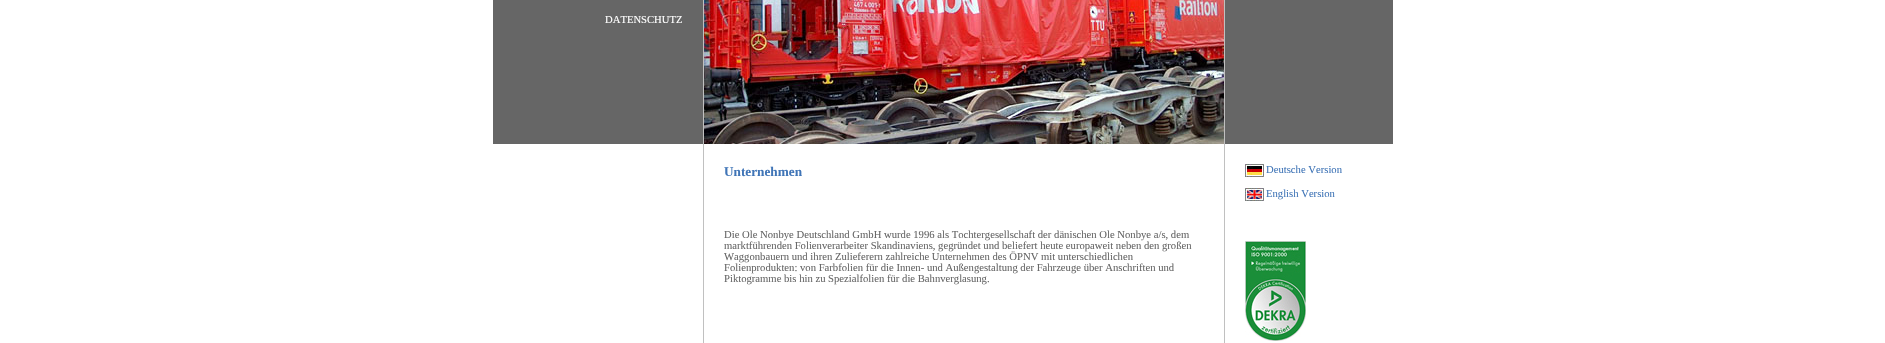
void draw(SkCanvas* canvas) {
	SkPaint paint;
	paint.setAntiAlias(true);
	canvas->clear(0xffffffff);
	paint.setColor(0xff666666);
	canvas->drawRect(SkRect::MakeXYWH(493, 0, 210, 144), paint);
	SkFont f1(fontMgr->matchFamilyStyle("Liberation Serif", SkFontStyle::Normal()), 10.65);
	f1.setSubpixel(true);
	paint.setColor(0xffffffff);
	canvas->drawString("DATENSCHUTZ", 605, 23, f1, paint);
	paint.setColor(0xffc0c0c0);
	canvas->drawRect(SkRect::MakeXYWH(1224, 0, 1, 343), paint);
	canvas->drawRect(SkRect::MakeXYWH(703, 0, 1, 343), paint);
	canvas->drawImageRect(SkImages::DeferredFromEncodedData(SkData::MakeFromFileName("img1.png")), SkRect::MakeXYWH(704, 0, 520, 144), SkSamplingOptions());
	SkFont f2(fontMgr->matchFamilyStyle("Liberation Serif", SkFontStyle::Bold()), 13.25);
	f2.setSubpixel(true);
	paint.setColor(0xff4075b7);
	canvas->drawString("Unternehmen", 724, 176, f2, paint);
	paint.setColor(0xff666666);
	canvas->drawString("Die Ole Nonbye Deutschland GmbH wurde 1996 als Tochtergesellschaft der dänischen Ole Nonbye a/s, dem", 724, 238, f1, paint);
	canvas->drawString("marktführenden Folienverarbeiter Skandinaviens, gegründet und beliefert heute europaweit neben den großen", 724, 249, f1, paint);
	canvas->drawString("Waggonbauern und ihren Zulieferern zahlreiche Unternehmen des ÖPNV mit unterschiedlichen", 724, 260, f1, paint);
	canvas->drawString("Folienprodukten: von Farbfolien für die Innen- und Außengestaltung der Fahrzeuge über Anschriften und", 724, 271, f1, paint);
	canvas->drawString("Piktogramme bis hin zu Spezialfolien für die Bahnverglasung.", 724, 282, f1, paint);
	canvas->drawRect(SkRect::MakeXYWH(1225, 0, 168, 144), paint);
	canvas->drawImageRect(SkImages::DeferredFromEncodedData(SkData::MakeFromFileName("img2.png")), SkRect::MakeXYWH(1245, 164, 19, 13), SkSamplingOptions());
	paint.setColor(0xff4075b7);
	canvas->drawString("Deutsche Version", 1266, 173, f1, paint);
	canvas->drawImageRect(SkImages::DeferredFromEncodedData(SkData::MakeFromFileName("img3.png")), SkRect::MakeXYWH(1245, 188, 19, 13), SkSamplingOptions());
	canvas->drawString("English Version", 1266, 197, f1, paint);
	canvas->drawImageRect(SkImages::DeferredFromEncodedData(SkData::MakeFromFileName("img4.png")), SkRect::MakeXYWH(1245, 241, 61, 100), SkSamplingOptions());
}
